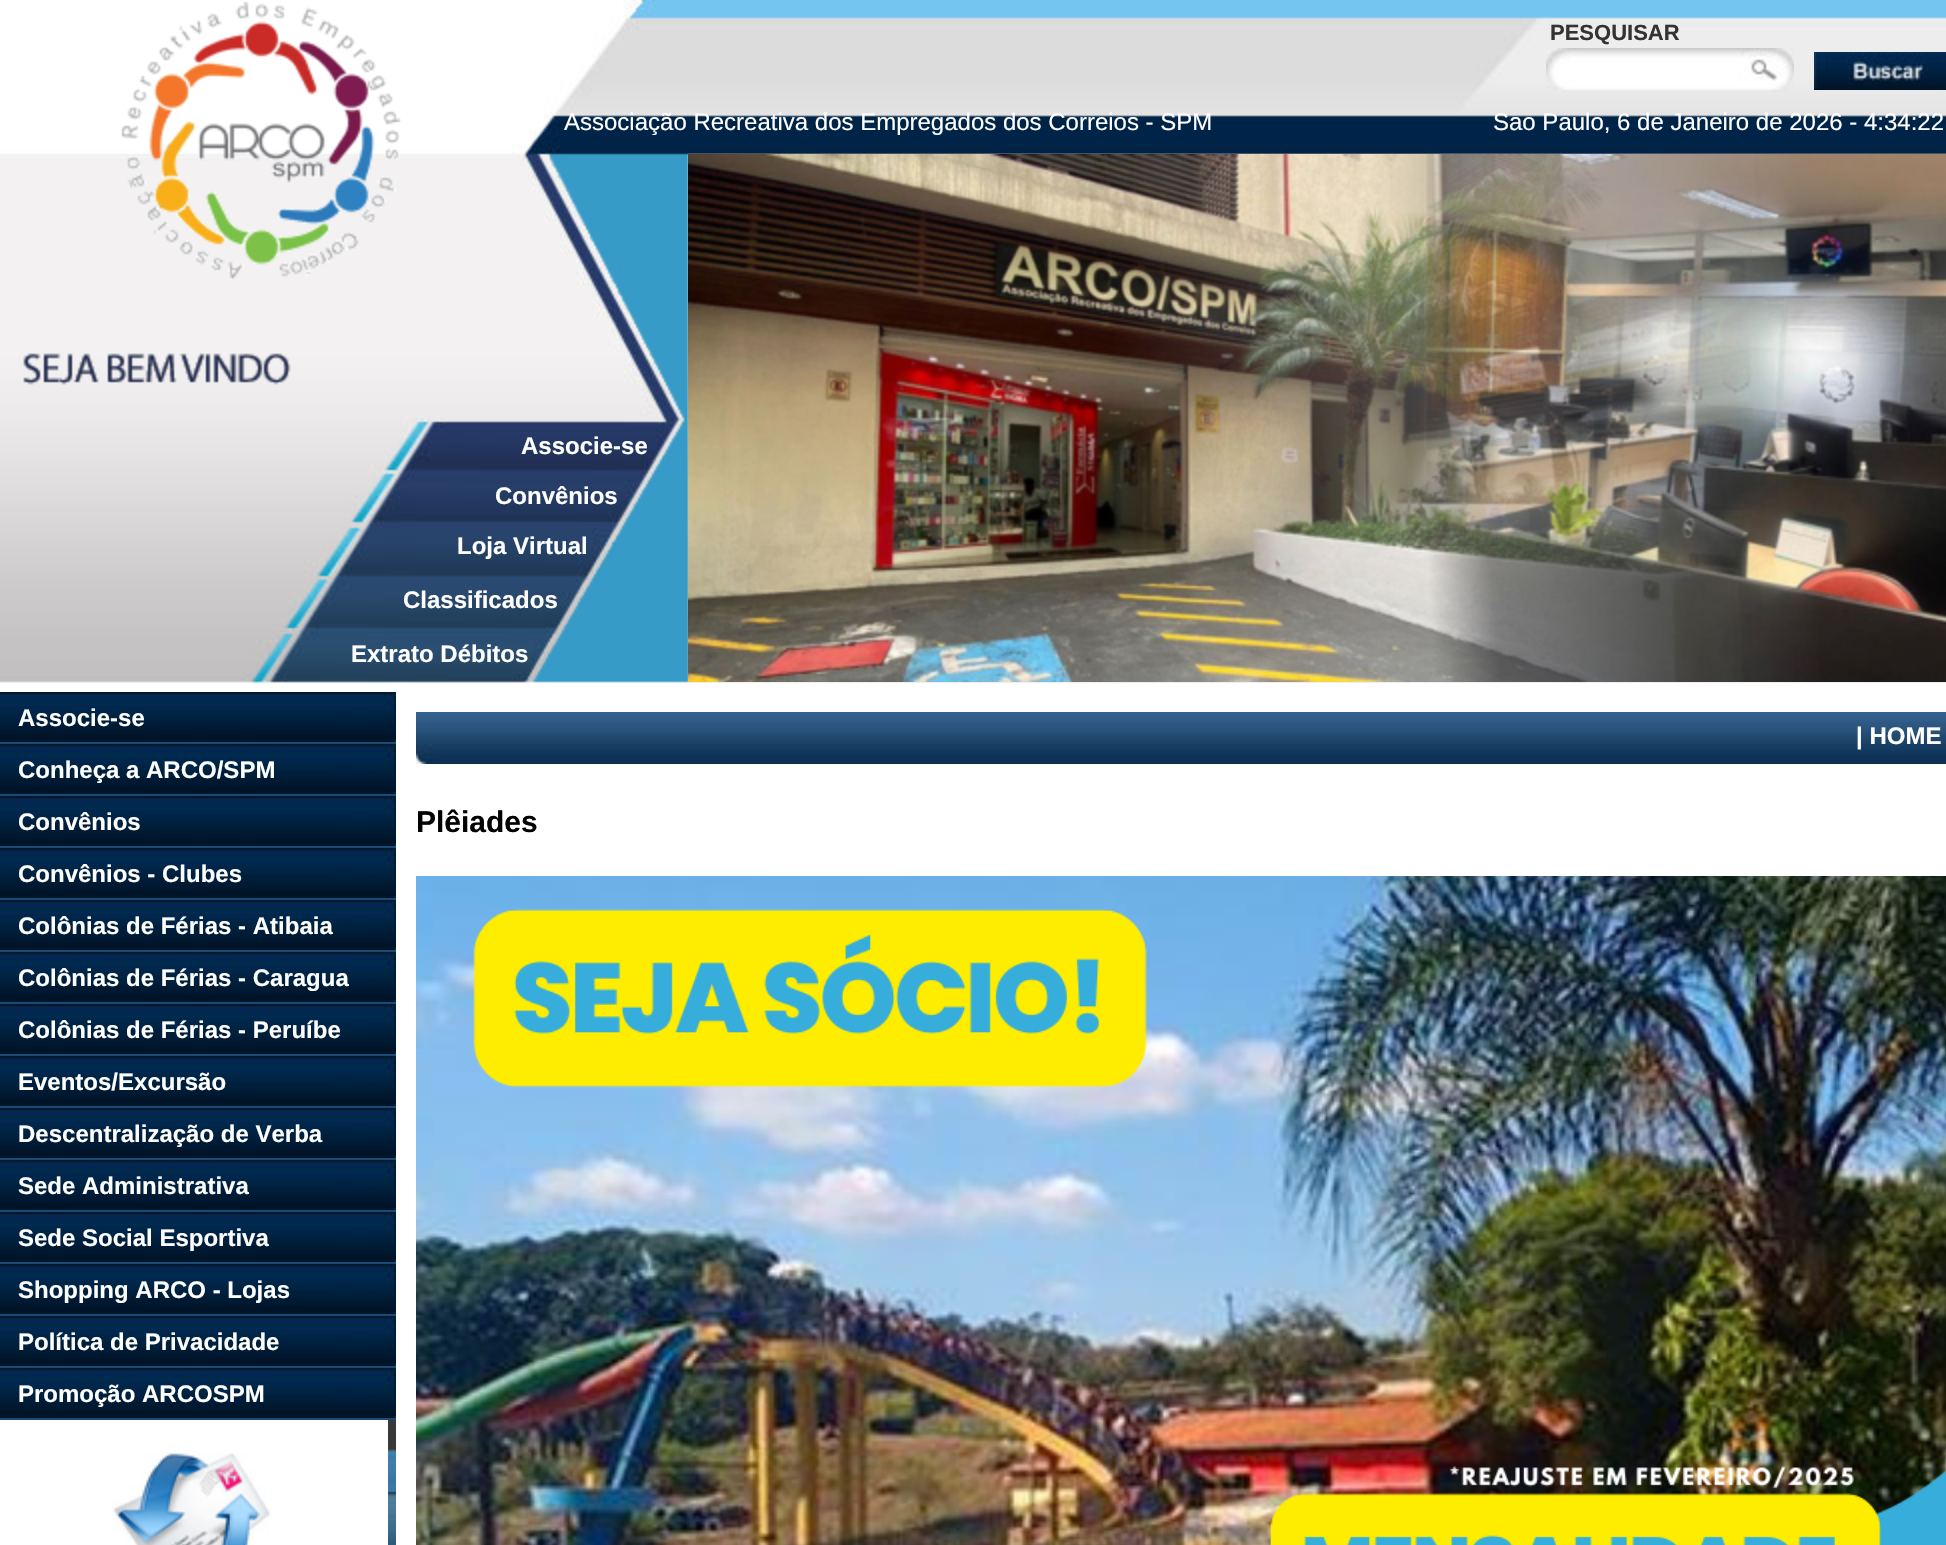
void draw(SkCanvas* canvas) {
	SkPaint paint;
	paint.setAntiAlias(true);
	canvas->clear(0xffffffff);
	canvas->drawImageRect(SkImages::DeferredFromEncodedData(SkData::MakeFromFileName("img1.png")), SkRect::MakeXYWH(0, 0, 1946, 684), SkSamplingOptions());
	canvas->drawImageRect(SkImages::DeferredFromEncodedData(SkData::MakeFromFileName("img2.png")), SkRect::MakeXYWH(121, 1, 280, 278), SkSamplingOptions());
	SkFont f1(fontMgr->matchFamilyStyle("Liberation Sans", SkFontStyle::Bold()), 22);
	f1.setSubpixel(true);
	paint.setColor(0xff333333);
	canvas->drawString("PESQUISAR", 1550, 40, f1, paint);
	canvas->drawImageRect(SkImages::DeferredFromEncodedData(SkData::MakeFromFileName("img3.png")), SkRect::MakeXYWH(1546, 48, 248, 44), SkSamplingOptions());
	canvas->drawImageRect(SkImages::DeferredFromEncodedData(SkData::MakeFromFileName("img4.png")), SkRect::MakeXYWH(1814, 52, 132, 38), SkSamplingOptions());
	SkFont f2(fontMgr->matchFamilyStyle("Liberation Sans", SkFontStyle::Normal()), 24);
	f2.setSubpixel(true);
	paint.setColor(0xffffffff);
	canvas->drawString("Associação Recreativa dos Empregados dos Correios - SPM", 564, 130, f2, paint);
	canvas->drawString("Sao Paulo, 6 de Janeiro de 2026 - 4:34:22", 1493, 130, f2, paint);
	canvas->drawImageRect(SkImages::DeferredFromEncodedData(SkData::MakeFromFileName("img5.png")), SkRect::MakeXYWH(23, 353, 268, 32), SkSamplingOptions());
	SkFont f3(fontMgr->matchFamilyStyle("Liberation Sans", SkFontStyle::Bold()), 24);
	f3.setSubpixel(true);
	canvas->drawString("Associe-se", 521, 454, f3, paint);
	canvas->drawString("Convênios", 495, 504, f3, paint);
	canvas->drawString("Loja Virtual", 457, 554, f3, paint);
	canvas->drawString("Classificados", 403, 608, f3, paint);
	canvas->drawString("Extrato Débitos", 351, 662, f3, paint);
	canvas->drawImageRect(SkImages::DeferredFromEncodedData(SkData::MakeFromFileName("img6.png")), SkRect::MakeXYWH(688, 154, 1258, 528), SkSamplingOptions());
	paint.setColor(0xff1c4a76);
	canvas->drawRect(SkRect::MakeXYWH(0, 742, 396, 678), paint);
	canvas->drawImageRect(SkImages::DeferredFromEncodedData(SkData::MakeFromFileName("img7.png")), SkRect::MakeXYWH(0, 692, 396, 50), SkSamplingOptions());
	paint.setColor(0xffffffff);
	canvas->drawString("Associe-se", 18, 726, f3, paint);
	canvas->drawImageRect(SkImages::DeferredFromEncodedData(SkData::MakeFromFileName("img7.png")), SkRect::MakeXYWH(0, 744, 396, 50), SkSamplingOptions());
	canvas->drawString("Conheça a ARCO/SPM", 18, 778, f3, paint);
	canvas->drawImageRect(SkImages::DeferredFromEncodedData(SkData::MakeFromFileName("img7.png")), SkRect::MakeXYWH(0, 796, 396, 50), SkSamplingOptions());
	canvas->drawString("Convênios", 18, 830, f3, paint);
	canvas->drawImageRect(SkImages::DeferredFromEncodedData(SkData::MakeFromFileName("img7.png")), SkRect::MakeXYWH(0, 848, 396, 50), SkSamplingOptions());
	canvas->drawString("Convênios - Clubes", 18, 882, f3, paint);
	canvas->drawImageRect(SkImages::DeferredFromEncodedData(SkData::MakeFromFileName("img7.png")), SkRect::MakeXYWH(0, 900, 396, 50), SkSamplingOptions());
	canvas->drawString("Colônias de Férias - Atibaia", 18, 934, f3, paint);
	canvas->drawImageRect(SkImages::DeferredFromEncodedData(SkData::MakeFromFileName("img7.png")), SkRect::MakeXYWH(0, 952, 396, 50), SkSamplingOptions());
	canvas->drawString("Colônias de Férias - Caragua", 18, 986, f3, paint);
	canvas->drawImageRect(SkImages::DeferredFromEncodedData(SkData::MakeFromFileName("img7.png")), SkRect::MakeXYWH(0, 1004, 396, 50), SkSamplingOptions());
	canvas->drawString("Colônias de Férias - Peruíbe", 18, 1038, f3, paint);
	canvas->drawImageRect(SkImages::DeferredFromEncodedData(SkData::MakeFromFileName("img7.png")), SkRect::MakeXYWH(0, 1056, 396, 50), SkSamplingOptions());
	canvas->drawString("Eventos/Excursão", 18, 1090, f3, paint);
	canvas->drawImageRect(SkImages::DeferredFromEncodedData(SkData::MakeFromFileName("img7.png")), SkRect::MakeXYWH(0, 1108, 396, 50), SkSamplingOptions());
	canvas->drawString("Descentralização de Verba", 18, 1142, f3, paint);
	canvas->drawImageRect(SkImages::DeferredFromEncodedData(SkData::MakeFromFileName("img7.png")), SkRect::MakeXYWH(0, 1160, 396, 50), SkSamplingOptions());
	canvas->drawString("Sede Administrativa", 18, 1194, f3, paint);
	canvas->drawImageRect(SkImages::DeferredFromEncodedData(SkData::MakeFromFileName("img7.png")), SkRect::MakeXYWH(0, 1212, 396, 50), SkSamplingOptions());
	canvas->drawString("Sede Social Esportiva", 18, 1246, f3, paint);
	canvas->drawImageRect(SkImages::DeferredFromEncodedData(SkData::MakeFromFileName("img7.png")), SkRect::MakeXYWH(0, 1264, 396, 50), SkSamplingOptions());
	canvas->drawString("Shopping ARCO - Lojas", 18, 1298, f3, paint);
	canvas->drawImageRect(SkImages::DeferredFromEncodedData(SkData::MakeFromFileName("img7.png")), SkRect::MakeXYWH(0, 1316, 396, 50), SkSamplingOptions());
	canvas->drawString("Política de Privacidade", 18, 1350, f3, paint);
	canvas->drawImageRect(SkImages::DeferredFromEncodedData(SkData::MakeFromFileName("img7.png")), SkRect::MakeXYWH(0, 1368, 396, 50), SkSamplingOptions());
	canvas->drawString("Promoção ARCOSPM", 18, 1402, f3, paint);
	canvas->drawImageRect(SkImages::DeferredFromEncodedData(SkData::MakeFromFileName("img8.png")), SkRect::MakeXYWH(388, 1420, 8, 125), SkSamplingOptions());
	canvas->drawImageRect(SkImages::DeferredFromEncodedData(SkData::MakeFromFileName("img9.png")), SkRect::MakeXYWH(0, 1420, 388, 125), SkSamplingOptions());
	canvas->drawImageRect(SkImages::DeferredFromEncodedData(SkData::MakeFromFileName("img10.png")), SkRect::MakeXYWH(416, 712, 1530, 52), SkSamplingOptions());
	canvas->drawString("| HOME", 1856, 744, f3, paint);
	SkFont f4(fontMgr->matchFamilyStyle("Liberation Sans", SkFontStyle::Bold()), 30);
	f4.setSubpixel(true);
	paint.setColor(0xff000000);
	canvas->drawString("Plêiades", 416, 832, f4, paint);
	canvas->drawImageRect(SkImages::DeferredFromEncodedData(SkData::MakeFromFileName("img11.png")), SkRect::MakeXYWH(416, 876, 1530, 669), SkSamplingOptions());
}
